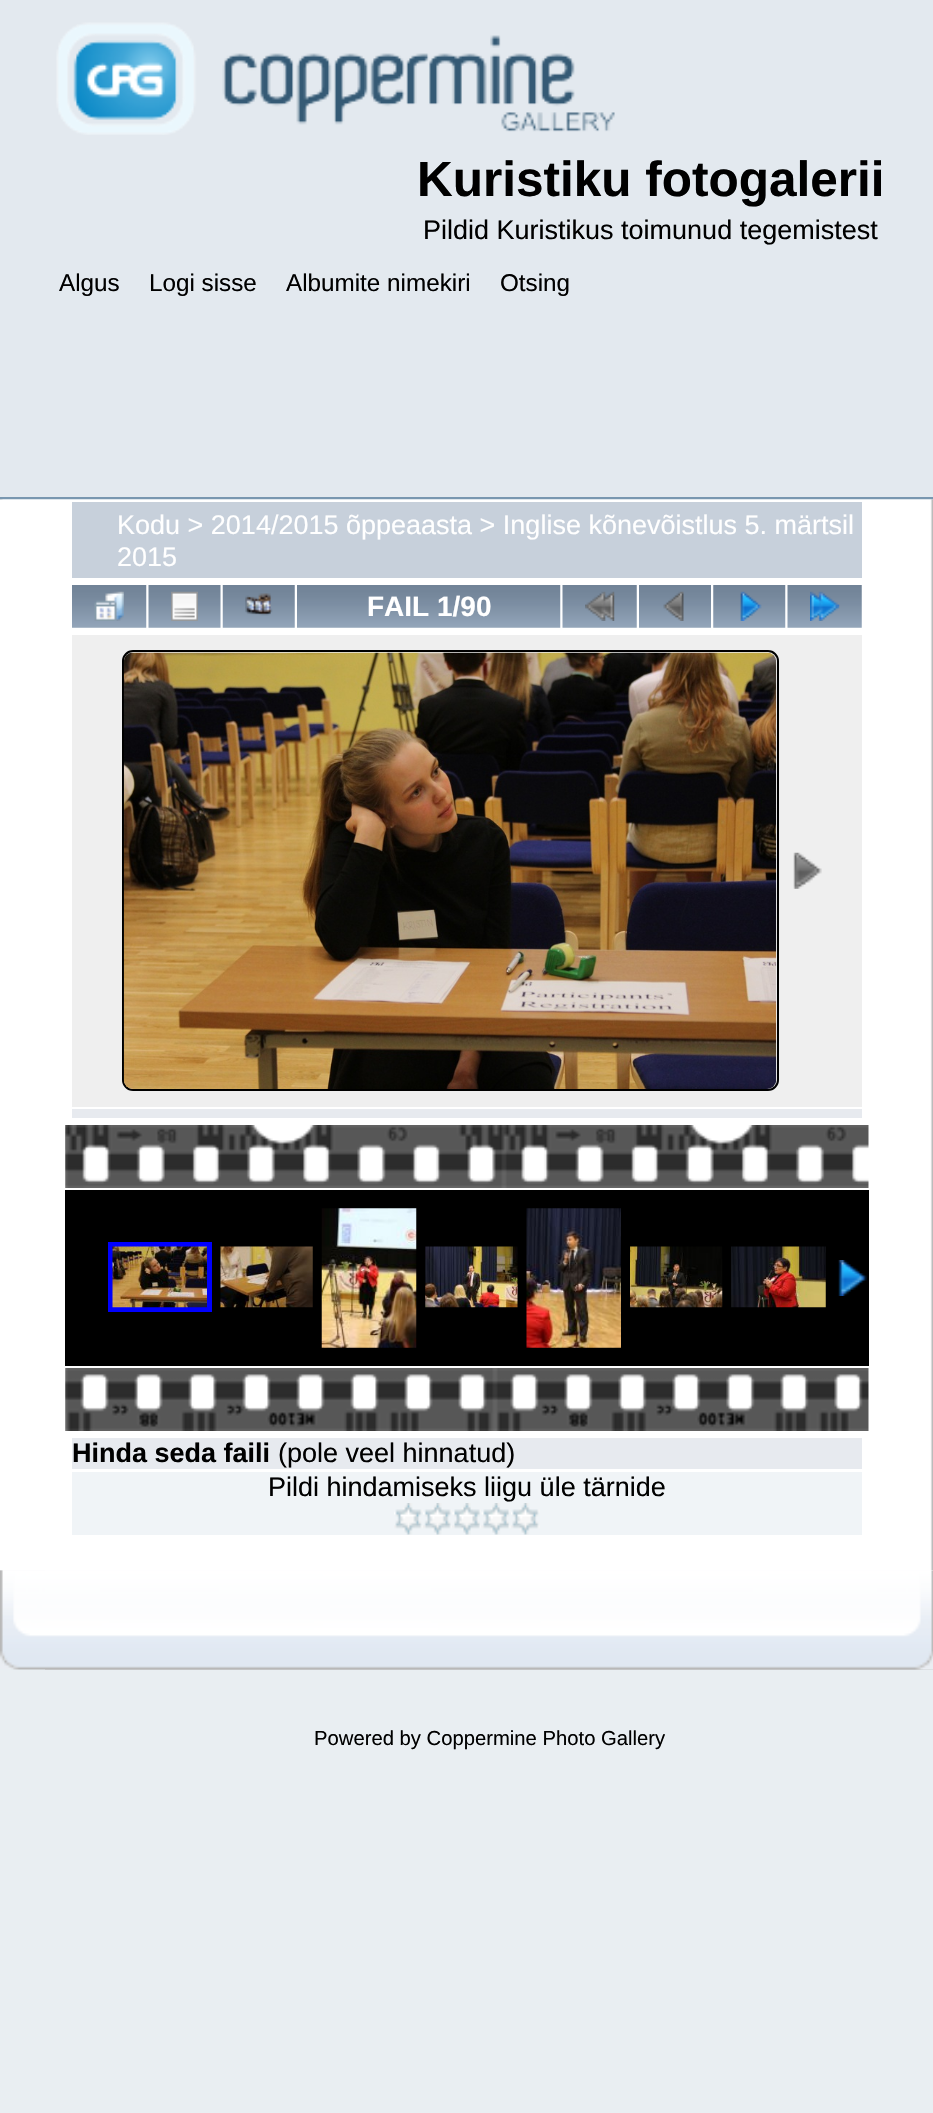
void draw(SkCanvas* canvas) {
	SkPaint paint;
	paint.setAntiAlias(true);
	canvas->clear(0xffe9eef2);
	canvas->drawImageRect(SkImages::DeferredFromEncodedData(SkData::MakeFromFileName("img1.png")), SkRect::MakeXYWH(0, 497, 933, 3), SkSamplingOptions());
	paint.setColor(0xffe3e9ef);
	canvas->drawRect(SkRect::MakeXYWH(0, 0, 933, 497), paint);
	canvas->drawImageRect(SkImages::DeferredFromEncodedData(SkData::MakeFromFileName("img2.png")), SkRect::MakeXYWH(56, 22, 559, 113), SkSamplingOptions());
	SkFont f1(fontMgr->matchFamilyStyle("Liberation Sans", SkFontStyle::Bold()), 49.5);
	f1.setSubpixel(true);
	paint.setColor(0xff000000);
	canvas->drawString("Kuristiku fotogalerii", 417, 196, f1, paint);
	SkFont f2(fontMgr->matchFamilyStyle("Liberation Sans", SkFontStyle::Normal()), 27);
	f2.setSubpixel(true);
	canvas->drawString("Pildid Kuristikus toimunud tegemistest", 423, 239, f2, paint);
	SkFont f3(fontMgr->matchFamilyStyle("Liberation Sans", SkFontStyle::Normal()), 24.25);
	f3.setSubpixel(true);
	canvas->drawString("Algus", 59, 291, f3, paint);
	canvas->drawString("Logi sisse", 149, 291, f3, paint);
	canvas->drawString("Albumite nimekiri", 286, 291, f3, paint);
	canvas->drawString("Otsing", 500, 291, f3, paint);
	canvas->drawImageRect(SkImages::DeferredFromEncodedData(SkData::MakeFromFileName("img3.png")), SkRect::MakeXYWH(0, 499, 933, 1072), SkSamplingOptions());
	canvas->drawImageRect(SkImages::DeferredFromEncodedData(SkData::MakeFromFileName("img4.png")), SkRect::MakeXYWH(0, 499, 933, 1072), SkSamplingOptions());
	paint.setColor(0xffc7d0db);
	canvas->drawRect(SkRect::MakeXYWH(72, 502, 790, 76), paint);
	paint.setColor(0xffffffff);
	canvas->drawString("Kodu > 2014/2015 õppeaasta > Inglise kõnevõistlus 5. märtsil", 117, 534, f2, paint);
	canvas->drawString("2015", 117, 566, f2, paint);
	canvas->drawImageRect(SkImages::DeferredFromEncodedData(SkData::MakeFromFileName("img5.png")), SkRect::MakeXYWH(72, 585, 75, 43), SkSamplingOptions());
	canvas->drawImageRect(SkImages::DeferredFromEncodedData(SkData::MakeFromFileName("img6.png")), SkRect::MakeXYWH(94, 591, 30, 30), SkSamplingOptions());
	canvas->drawImageRect(SkImages::DeferredFromEncodedData(SkData::MakeFromFileName("img7.png")), SkRect::MakeXYWH(148, 585, 73, 43), SkSamplingOptions());
	canvas->drawImageRect(SkImages::DeferredFromEncodedData(SkData::MakeFromFileName("img8.png")), SkRect::MakeXYWH(171, 591, 27, 30), SkSamplingOptions());
	canvas->drawImageRect(SkImages::DeferredFromEncodedData(SkData::MakeFromFileName("img9.png")), SkRect::MakeXYWH(222, 585, 73, 43), SkSamplingOptions());
	canvas->drawImageRect(SkImages::DeferredFromEncodedData(SkData::MakeFromFileName("img10.png")), SkRect::MakeXYWH(245, 593, 28, 23), SkSamplingOptions());
	canvas->drawImageRect(SkImages::DeferredFromEncodedData(SkData::MakeFromFileName("img11.png")), SkRect::MakeXYWH(297, 585, 264, 43), SkSamplingOptions());
	SkFont f4(fontMgr->matchFamilyStyle("Liberation Sans", SkFontStyle::Bold()), 28);
	f4.setSubpixel(true);
	canvas->drawString("FAIL 1/90", 367, 616, f4, paint);
	canvas->drawImageRect(SkImages::DeferredFromEncodedData(SkData::MakeFromFileName("img12.png")), SkRect::MakeXYWH(562, 585, 75, 43), SkSamplingOptions());
	canvas->drawImageRect(SkImages::DeferredFromEncodedData(SkData::MakeFromFileName("img13.png")), SkRect::MakeXYWH(585, 591, 30, 30), SkSamplingOptions());
	canvas->drawImageRect(SkImages::DeferredFromEncodedData(SkData::MakeFromFileName("img14.png")), SkRect::MakeXYWH(639, 585, 72, 43), SkSamplingOptions());
	canvas->drawImageRect(SkImages::DeferredFromEncodedData(SkData::MakeFromFileName("img15.png")), SkRect::MakeXYWH(663, 591, 21, 30), SkSamplingOptions());
	canvas->drawImageRect(SkImages::DeferredFromEncodedData(SkData::MakeFromFileName("img16.png")), SkRect::MakeXYWH(713, 585, 73, 43), SkSamplingOptions());
	canvas->drawImageRect(SkImages::DeferredFromEncodedData(SkData::MakeFromFileName("img17.png")), SkRect::MakeXYWH(740, 591, 22, 30), SkSamplingOptions());
	canvas->drawImageRect(SkImages::DeferredFromEncodedData(SkData::MakeFromFileName("img12.png")), SkRect::MakeXYWH(787, 585, 75, 43), SkSamplingOptions());
	canvas->drawImageRect(SkImages::DeferredFromEncodedData(SkData::MakeFromFileName("img18.png")), SkRect::MakeXYWH(810, 591, 30, 30), SkSamplingOptions());
	paint.setColor(0xffefefef);
	canvas->drawRect(SkRect::MakeXYWH(72, 635, 790, 472), paint);
	paint.setStroke(true);
	paint.setStrokeWidth(2);
	paint.setColor(0xff000000);
	canvas->drawRoundRect(SkRect::MakeXYWH(123, 651, 655, 439), 10, 10, paint);
	canvas->drawImageRect(SkImages::DeferredFromEncodedData(SkData::MakeFromFileName("img19.png")), SkRect::MakeXYWH(123, 652, 654, 437), SkSamplingOptions());
	canvas->drawImageRect(SkImages::DeferredFromEncodedData(SkData::MakeFromFileName("img20.png")), SkRect::MakeXYWH(793, 852, 29, 37), SkSamplingOptions());
	paint.setStroke(false);
	paint.setColor(0xffe7eaef);
	canvas->drawRect(SkRect::MakeXYWH(72, 1109, 790, 9), paint);
	canvas->drawImageRect(SkImages::DeferredFromEncodedData(SkData::MakeFromFileName("img21.png")), SkRect::MakeXYWH(65, 1125, 804, 63), SkSamplingOptions());
	paint.setColor(0xff000000);
	canvas->drawRect(SkRect::MakeXYWH(65, 1190, 804, 176), paint);
	paint.setStroke(true);
	paint.setStrokeWidth(5);
	paint.setColor(0xff0000ff);
	canvas->drawRect(SkRect::MakeXYWH(110.5, 1244.5, 99, 65), paint);
	canvas->drawImageRect(SkImages::DeferredFromEncodedData(SkData::MakeFromFileName("img22.png")), SkRect::MakeXYWH(112, 1246, 95, 62), SkSamplingOptions());
	canvas->drawImageRect(SkImages::DeferredFromEncodedData(SkData::MakeFromFileName("img23.png")), SkRect::MakeXYWH(220, 1246, 93, 62), SkSamplingOptions());
	canvas->drawImageRect(SkImages::DeferredFromEncodedData(SkData::MakeFromFileName("img24.png")), SkRect::MakeXYWH(321, 1208, 96, 140), SkSamplingOptions());
	canvas->drawImageRect(SkImages::DeferredFromEncodedData(SkData::MakeFromFileName("img25.png")), SkRect::MakeXYWH(425, 1246, 93, 62), SkSamplingOptions());
	canvas->drawImageRect(SkImages::DeferredFromEncodedData(SkData::MakeFromFileName("img26.png")), SkRect::MakeXYWH(526, 1208, 95, 140), SkSamplingOptions());
	canvas->drawImageRect(SkImages::DeferredFromEncodedData(SkData::MakeFromFileName("img27.png")), SkRect::MakeXYWH(630, 1246, 93, 62), SkSamplingOptions());
	canvas->drawImageRect(SkImages::DeferredFromEncodedData(SkData::MakeFromFileName("img28.png")), SkRect::MakeXYWH(731, 1246, 95, 62), SkSamplingOptions());
	canvas->drawImageRect(SkImages::DeferredFromEncodedData(SkData::MakeFromFileName("img29.png")), SkRect::MakeXYWH(838, 1260, 29, 36), SkSamplingOptions());
	canvas->drawImageRect(SkImages::DeferredFromEncodedData(SkData::MakeFromFileName("img30.png")), SkRect::MakeXYWH(65, 1368, 804, 63), SkSamplingOptions());
	paint.setStroke(false);
	paint.setColor(0xffe7eaef);
	canvas->drawRect(SkRect::MakeXYWH(72, 1438, 790, 31), paint);
	SkFont f5(fontMgr->matchFamilyStyle("Liberation Sans", SkFontStyle::Bold()), 27);
	f5.setSubpixel(true);
	paint.setColor(0xff000000);
	canvas->drawString("Hinda seda faili", 72, 1462, f5, paint);
	canvas->drawString("(pole veel hinnatud)", 278, 1462, f2, paint);
	paint.setColor(0xfff0f4f7);
	canvas->drawRect(SkRect::MakeXYWH(72, 1472, 790, 63), paint);
	paint.setColor(0xff000000);
	canvas->drawString("Pildi hindamiseks liigu üle tärnide", 268, 1496, f2, paint);
	canvas->drawImageRect(SkImages::DeferredFromEncodedData(SkData::MakeFromFileName("img31.png")), SkRect::MakeXYWH(394, 1503, 29, 32), SkSamplingOptions());
	canvas->drawImageRect(SkImages::DeferredFromEncodedData(SkData::MakeFromFileName("img32.png")), SkRect::MakeXYWH(423, 1503, 29, 32), SkSamplingOptions());
	canvas->drawImageRect(SkImages::DeferredFromEncodedData(SkData::MakeFromFileName("img33.png")), SkRect::MakeXYWH(452, 1503, 29, 32), SkSamplingOptions());
	canvas->drawImageRect(SkImages::DeferredFromEncodedData(SkData::MakeFromFileName("img34.png")), SkRect::MakeXYWH(481, 1503, 30, 32), SkSamplingOptions());
	canvas->drawImageRect(SkImages::DeferredFromEncodedData(SkData::MakeFromFileName("img31.png")), SkRect::MakeXYWH(511, 1503, 29, 32), SkSamplingOptions());
	canvas->drawImageRect(SkImages::DeferredFromEncodedData(SkData::MakeFromFileName("img35.png")), SkRect::MakeXYWH(0, 1570, 933, 100), SkSamplingOptions());
	canvas->drawImageRect(SkImages::DeferredFromEncodedData(SkData::MakeFromFileName("img36.png")), SkRect::MakeXYWH(45, 1570, 888, 100), SkSamplingOptions());
	SkFont f6(fontMgr->matchFamilyStyle("Liberation Sans", SkFontStyle::Normal()), 20.25);
	f6.setSubpixel(true);
	canvas->drawString("Powered by Coppermine Photo Gallery", 314, 1745, f6, paint);
}
